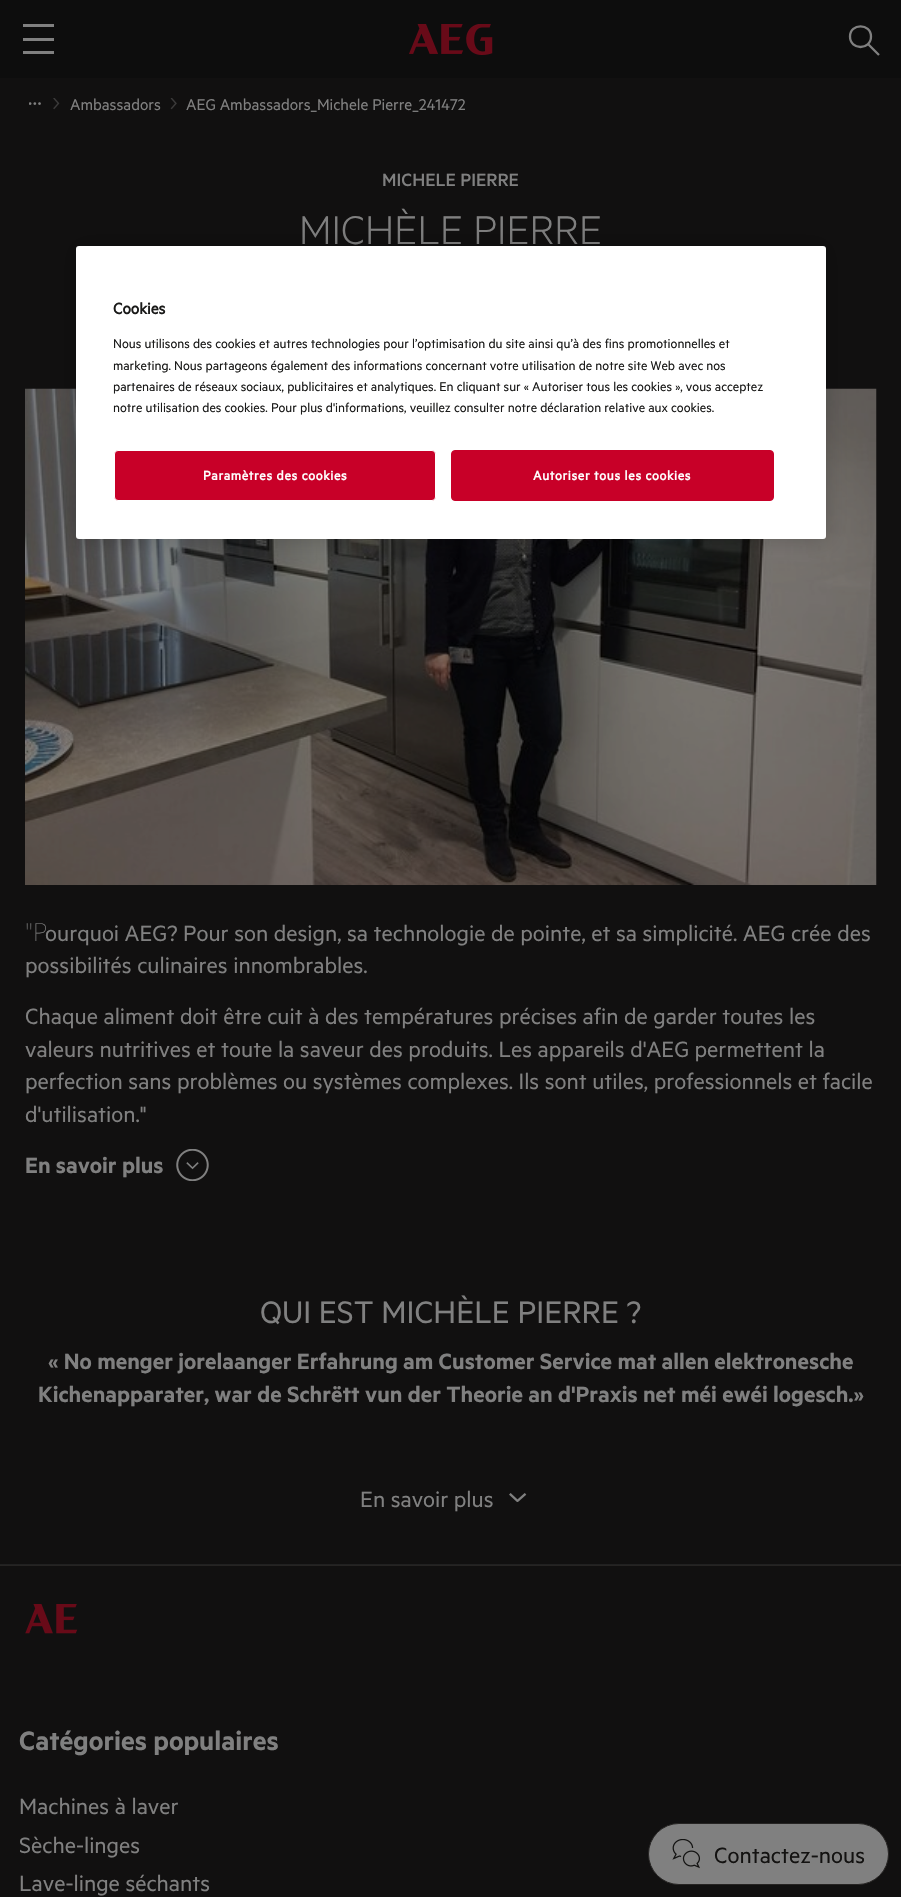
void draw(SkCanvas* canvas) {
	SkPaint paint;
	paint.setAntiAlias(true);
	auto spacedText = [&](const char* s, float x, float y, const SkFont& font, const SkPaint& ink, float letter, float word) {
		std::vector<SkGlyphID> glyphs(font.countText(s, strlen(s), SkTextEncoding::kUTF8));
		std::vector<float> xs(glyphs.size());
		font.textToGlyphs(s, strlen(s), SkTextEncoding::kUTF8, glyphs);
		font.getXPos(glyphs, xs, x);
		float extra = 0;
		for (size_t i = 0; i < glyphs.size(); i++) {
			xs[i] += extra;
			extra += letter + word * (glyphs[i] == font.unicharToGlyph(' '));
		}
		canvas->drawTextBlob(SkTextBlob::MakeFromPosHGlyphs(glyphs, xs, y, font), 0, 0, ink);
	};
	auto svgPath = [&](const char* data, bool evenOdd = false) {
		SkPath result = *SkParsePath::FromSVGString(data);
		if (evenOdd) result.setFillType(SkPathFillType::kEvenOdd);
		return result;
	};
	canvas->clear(0xff111010);
	paint.setColor(0xff0d0d0d);
	canvas->drawRect(SkRect::MakeXYWH(0, 0, 901, 78), paint);
	paint.setColor(0xff808080);
	canvas->drawRect(SkRect::MakeXYWH(23, 38, 31, 3), paint);
	canvas->drawRect(SkRect::MakeXYWH(23, 24, 31, 3), paint);
	canvas->drawRect(SkRect::MakeXYWH(23, 51, 31, 3), paint);
	canvas->drawImageRect(SkImages::DeferredFromEncodedData(SkData::MakeFromFileName("img1.png")), SkRect::MakeXYWH(409, 24, 84, 31), SkSamplingOptions());
	paint.setStroke(true);
	paint.setStrokeWidth(2.3);
	paint.setStrokeJoin(SkPaint::kRound_Join);
	canvas->drawPath(svgPath("M871 36.5C871 50.5 850 50.5 850 36.5C850 23 871 23 871 36.5ZM879 55L868.5 44.5"), paint);
	canvas->drawImageRect(SkImages::DeferredFromEncodedData(SkData::MakeFromFileName("img2.png")), SkRect::MakeXYWH(29, 102, 12, 3), SkSamplingOptions());
	canvas->drawImageRect(SkImages::DeferredFromEncodedData(SkData::MakeFromFileName("img3.png")), SkRect::MakeXYWH(53, 98, 7, 12), SkSamplingOptions());
	SkFont f1(fontMgr->matchFamilyStyle("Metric", SkFontStyle::Normal()), 17.5);
	f1.setSubpixel(true);
	paint.setStroke(false);
	canvas->drawString("Ambassadors", 70, 110, f1, paint);
	canvas->drawImageRect(SkImages::DeferredFromEncodedData(SkData::MakeFromFileName("img4.png")), SkRect::MakeXYWH(170, 98, 7, 12), SkSamplingOptions());
	canvas->drawString("AEG Ambassadors_Michele Pierre_241472", 186, 110, f1, paint);
	SkFont f2(fontMgr->matchFamilyStyle("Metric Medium", SkFontStyle(500, SkFontStyle::kNormal_Width, SkFontStyle::kUpright_Slant)), 20);
	f2.setSubpixel(true);
	canvas->drawString("MICHELE PIERRE", 382, 186, f2, paint);
	SkFont f3(fontMgr->matchFamilyStyle("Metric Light", SkFontStyle(300, SkFontStyle::kNormal_Width, SkFontStyle::kUpright_Slant)), 45);
	f3.setSubpixel(true);
	canvas->drawString("MICHÈLE PIERRE", 299, 244, f3, paint);
	canvas->drawImageRect(SkImages::DeferredFromEncodedData(SkData::MakeFromFileName("img5.png")), SkRect::MakeXYWH(25, 388, 852, 497), SkSamplingOptions());
	SkFont f4(fontMgr->matchFamilyStyle("Noto Sans", SkFontStyle(100, SkFontStyle::kNormal_Width, SkFontStyle::kUpright_Slant)), 25);
	f4.setSubpixel(true);
	canvas->drawString("\"P", 25, 941, f4, paint);
	SkFont f5(fontMgr->matchFamilyStyle("Metric", SkFontStyle::Normal()), 25);
	f5.setSubpixel(true);
	canvas->drawString("ourquoi AEG? Pour son design, sa technologie de pointe, et sa simplicité. AEG crée des", 45, 941, f5, paint);
	canvas->drawString("possibilités culinaires innombrables.", 25, 973, f5, paint);
	canvas->drawString("Chaque aliment doit être cuit à des températures précises afin de garder toutes les", 25, 1024, f5, paint);
	canvas->drawString("valeurs nutritives et toute la saveur des produits. Les appareils d'AEG permettent la", 25, 1057, f5, paint);
	canvas->drawString("perfection sans problèmes ou systèmes complexes. Ils sont utiles, professionnels et facile", 25, 1089, f5, paint);
	canvas->drawString("d'utilisation.\"", 25, 1122, f5, paint);
	SkFont f6(fontMgr->matchFamilyStyle("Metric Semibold", SkFontStyle(600, SkFontStyle::kNormal_Width, SkFontStyle::kUpright_Slant)), 25);
	f6.setSubpixel(true);
	canvas->drawString("En savoir plus", 25, 1173, f6, paint);
	canvas->drawImageRect(SkImages::DeferredFromEncodedData(SkData::MakeFromFileName("img6.png")), SkRect::MakeXYWH(176, 1149, 33, 32), SkSamplingOptions());
	SkFont f7(fontMgr->matchFamilyStyle("Metric", SkFontStyle::Normal()), 35);
	f7.setSubpixel(true);
	canvas->drawString("QUI EST MICHÈLE PIERRE ?", 260, 1323, f7, paint);
	canvas->drawString("« No menger jorelaanger Erfahrung am Customer Service mat allen elektronesche", 48, 1369, f6, paint);
	canvas->drawString("Kichenapparater, war de Schrëtt vun der Theorie an d'Praxis net méi ewéi logesch.»", 38, 1402, f6, paint);
	canvas->drawString("En savoir plus", 360, 1507, f5, paint);
	canvas->drawImageRect(SkImages::DeferredFromEncodedData(SkData::MakeFromFileName("img7.png")), SkRect::MakeXYWH(509, 1493, 18, 9), SkSamplingOptions());
	paint.setColor(0xff212121);
	canvas->drawRect(SkRect::MakeXYWH(0, 1564, 901, 1), paint);
	paint.setColor(0x33000000);
	paint.setMaskFilter(SkMaskFilter::MakeBlur(kNormal_SkBlurStyle, 11));
	canvas->drawRoundRect(SkRect::MakeXYWH(76, 246, 750, 293), 3, 3, paint);
	paint.setMaskFilter(nullptr);
	paint.setColor(0xffffffff);
	canvas->drawRoundRect(SkRect::MakeXYWH(76, 246, 750, 293), 3, 3, paint);
	SkFont f8(fontMgr->matchFamilyStyle("Metric", SkFontStyle::Bold()), 17.5);
	f8.setSubpixel(true);
	paint.setColor(0xff1a1a19);
	canvas->drawString("Cookies", 113, 314, f8, paint);
	SkFont f9(fontMgr->matchFamilyStyle("Metric", SkFontStyle::Normal()), 14.25);
	f9.setSubpixel(true);
	canvas->drawString("Nous utilisons des cookies et autres technologies pour l’optimisation du site ainsi qu’à des fins promotionnelles et", 113, 348, f9, paint);
	canvas->drawString("marketing. Nous partageons également des informations concernant votre utilisation de notre site Web avec nos", 113, 370, f9, paint);
	canvas->drawString("partenaires de réseaux sociaux, publicitaires et analytiques. En cliquant sur « Autoriser tous les cookies », vous acceptez", 113, 391, f9, paint);
	canvas->drawString("notre utilisation des cookies. Pour plus d'informations, veuillez consulter notre déclaration relative aux cookies.", 113, 412, f9, paint);
	paint.setColor(0xffc80028);
	canvas->drawRoundRect(SkRect::MakeXYWH(114.5, 450.5, 321, 50), 3.5, 3.5, paint);
	paint.setStroke(true);
	paint.setStrokeWidth(1);
	paint.setStrokeJoin(SkPaint::kMiter_Join);
	paint.setColor(0xffffffff);
	canvas->drawRoundRect(SkRect::MakeXYWH(114.5, 450.5, 321, 50), 3.5, 3.5, paint);
	SkFont f10(fontMgr->matchFamilyStyle("Metric", SkFontStyle::Bold()), 14.25);
	f10.setSubpixel(true);
	paint.setStroke(false);
	spacedText("Paramètres des cookies", 203, 480, f10, paint, 0.7, 0);
	paint.setColor(0xffc80028);
	canvas->drawRoundRect(SkRect::MakeXYWH(451.5, 450.5, 322, 50), 3.5, 3.5, paint);
	paint.setStroke(true);
	canvas->drawRoundRect(SkRect::MakeXYWH(451.5, 450.5, 322, 50), 3.5, 3.5, paint);
	paint.setStroke(false);
	paint.setColor(0xffffffff);
	spacedText("Autoriser tous les cookies", 533, 480, f10, paint, 0.7, 0);
	paint.setColor(0xff262423);
	canvas->drawRect(SkRect::MakeXYWH(0, 1565, 901, 1), paint);
	canvas->drawImageRect(SkImages::DeferredFromEncodedData(SkData::MakeFromFileName("img8.png")), SkRect::MakeXYWH(25, 1604, 53, 30), SkSamplingOptions());
	SkFont f11(fontMgr->matchFamilyStyle("Metric Semibold", SkFontStyle(600, SkFontStyle::kNormal_Width, SkFontStyle::kUpright_Slant)), 30);
	f11.setSubpixel(true);
	paint.setColor(0xff808080);
	canvas->drawString("Catégories populaires", 19, 1750, f11, paint);
	canvas->drawString("Machines à laver", 19, 1814, f5, paint);
	canvas->drawString("Sèche-linges", 19, 1853, f5, paint);
	canvas->drawString("Lave-linge séchants", 19, 1891, f5, paint);
	canvas->drawRoundRect(SkRect::MakeXYWH(648.5, 1823.5, 240, 61), 30.5, 30.5, paint);
	paint.setStroke(true);
	paint.setColor(0xff262423);
	canvas->drawRoundRect(SkRect::MakeXYWH(648.5, 1823.5, 240, 61), 30.5, 30.5, paint);
	canvas->drawImageRect(SkImages::DeferredFromEncodedData(SkData::MakeFromFileName("img9.png")), SkRect::MakeXYWH(672, 1839, 28, 30), SkSamplingOptions());
	paint.setStroke(false);
	paint.setColor(0xff131211);
	canvas->drawString("Contactez-nous", 714, 1863, f5, paint);
}
